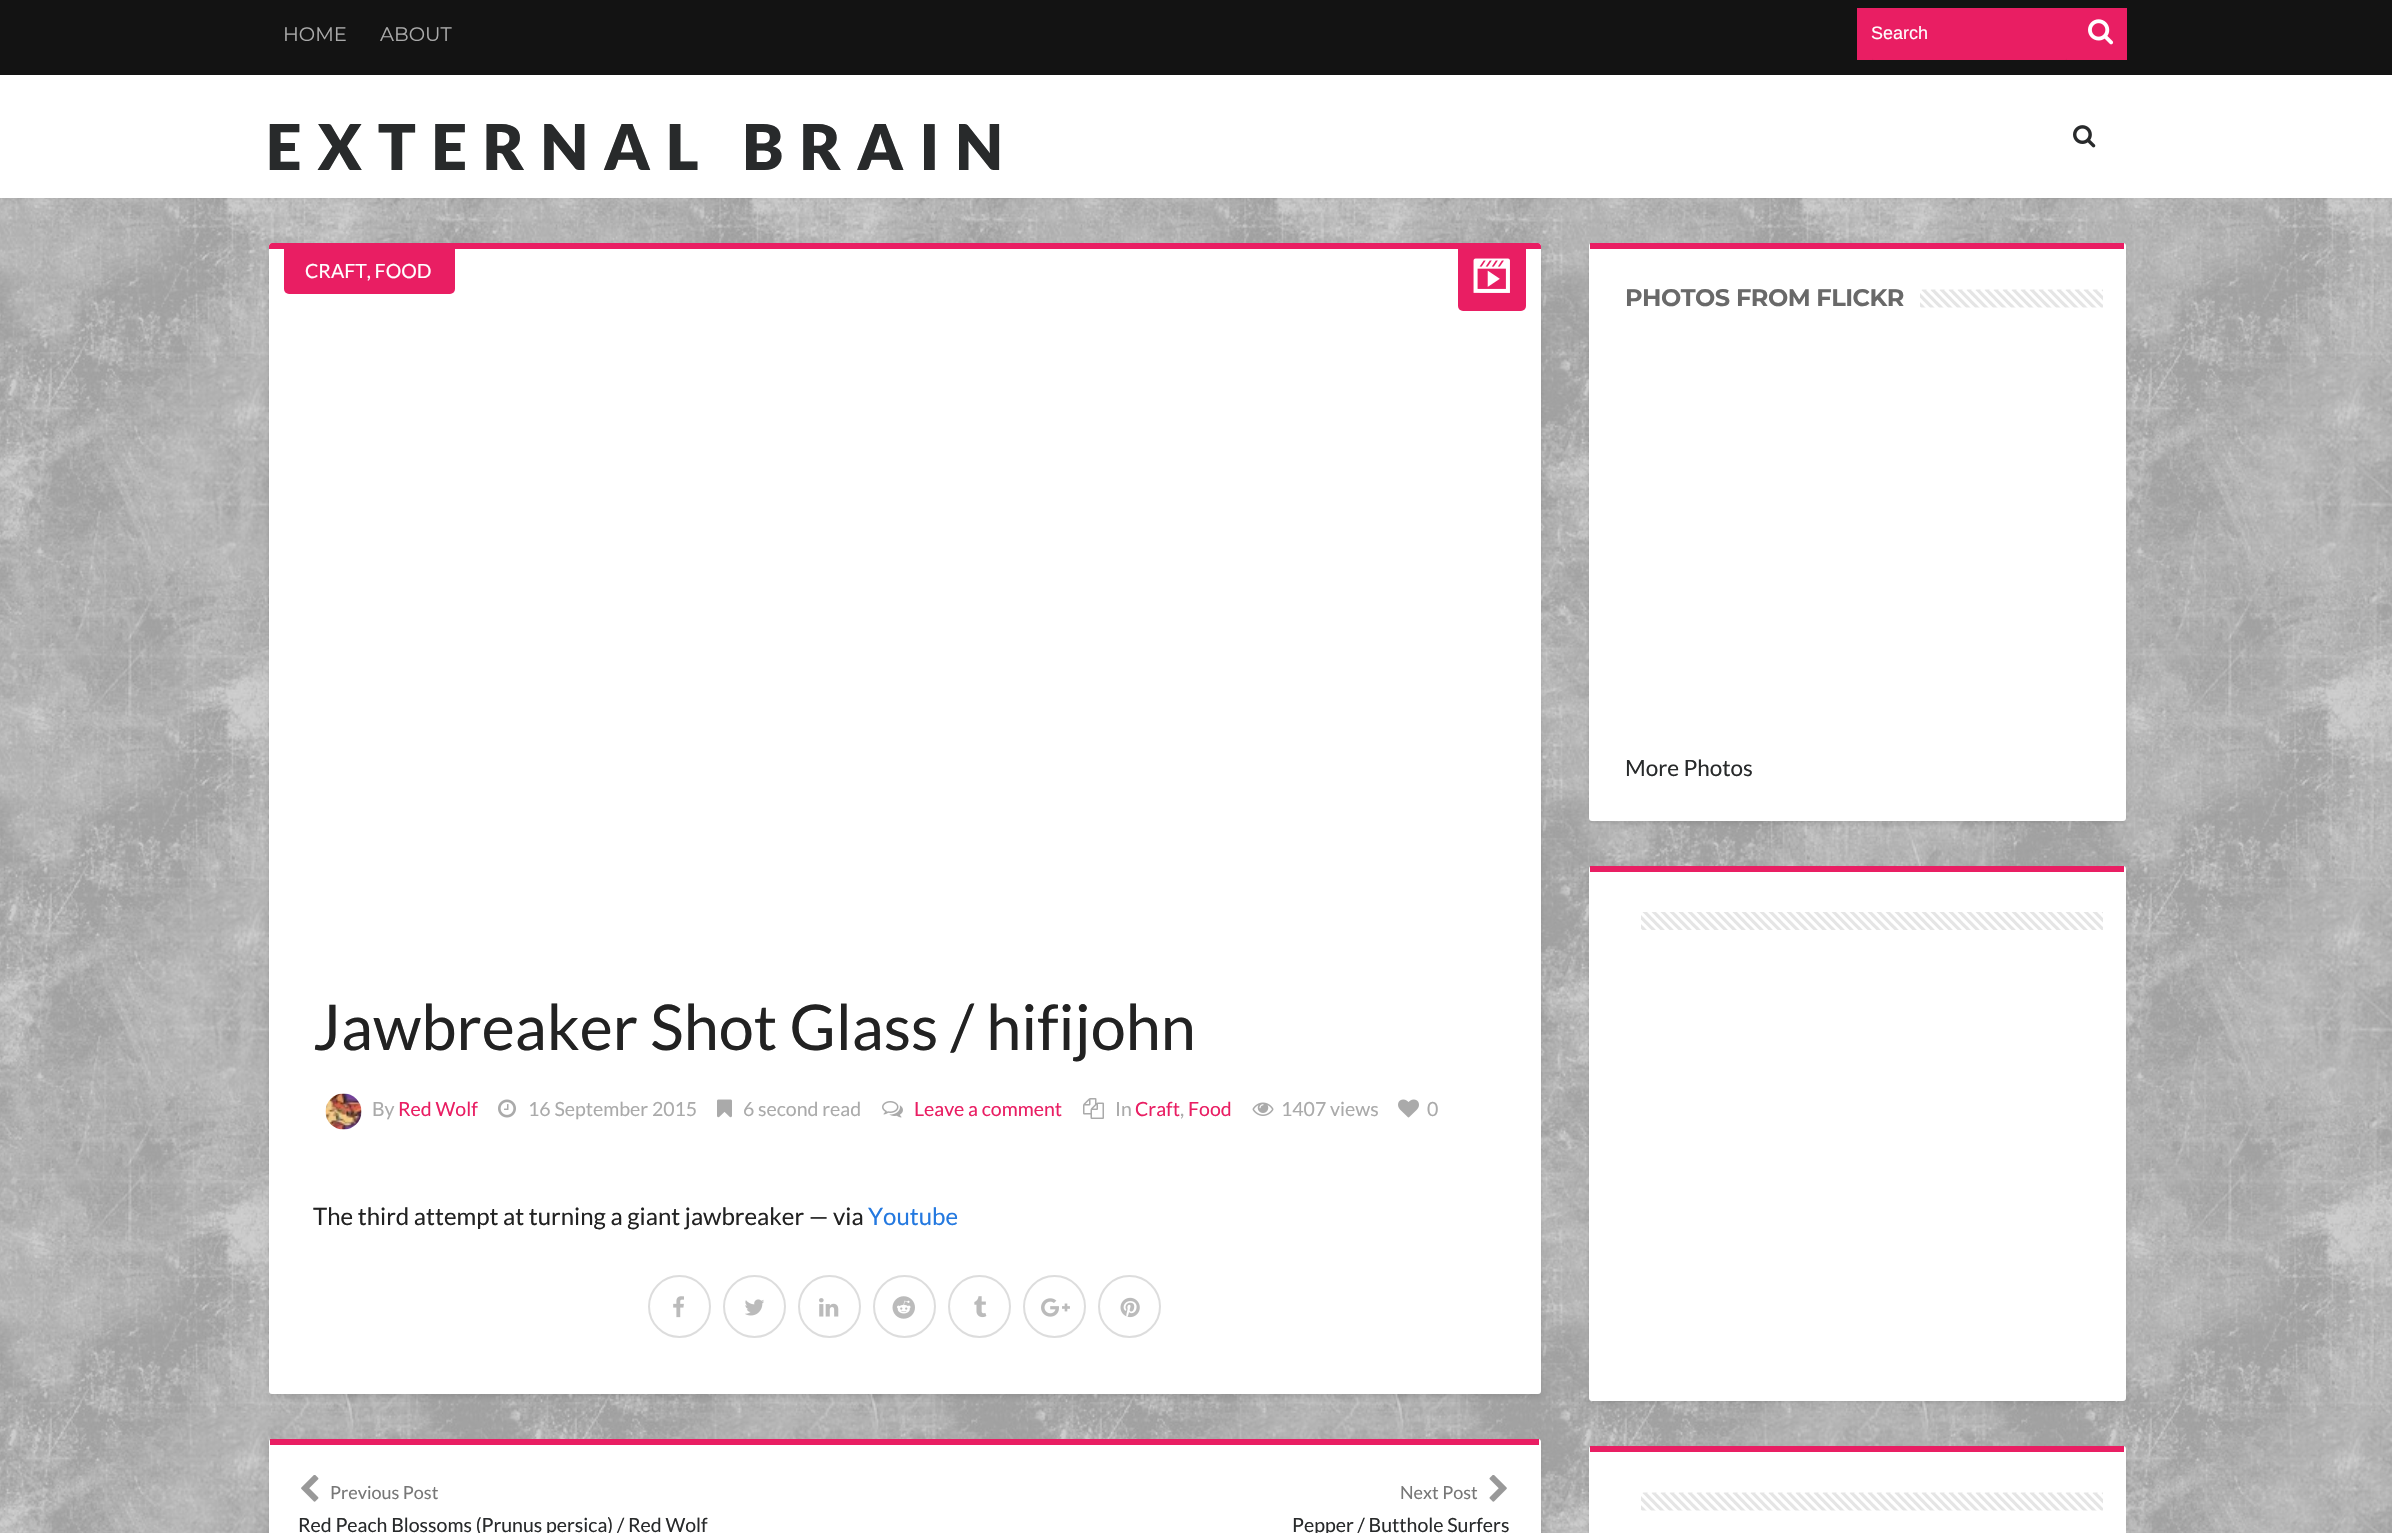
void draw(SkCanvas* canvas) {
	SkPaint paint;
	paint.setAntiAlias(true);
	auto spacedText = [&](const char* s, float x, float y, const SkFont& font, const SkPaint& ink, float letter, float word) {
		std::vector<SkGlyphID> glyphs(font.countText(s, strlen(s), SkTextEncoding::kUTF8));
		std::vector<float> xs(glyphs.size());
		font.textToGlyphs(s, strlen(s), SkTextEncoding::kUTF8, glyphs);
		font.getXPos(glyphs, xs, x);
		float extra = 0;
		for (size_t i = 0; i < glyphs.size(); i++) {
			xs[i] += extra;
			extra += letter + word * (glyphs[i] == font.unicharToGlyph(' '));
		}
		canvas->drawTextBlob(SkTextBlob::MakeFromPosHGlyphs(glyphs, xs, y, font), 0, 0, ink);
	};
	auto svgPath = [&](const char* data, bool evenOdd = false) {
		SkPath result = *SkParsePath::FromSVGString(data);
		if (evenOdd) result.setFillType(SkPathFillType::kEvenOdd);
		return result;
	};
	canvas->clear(0xffffffff);
	canvas->drawImageRect(SkImages::DeferredFromEncodedData(SkData::MakeFromFileName("img1.png")), SkRect::MakeXYWH(0, 198, 2392, 1335), SkSamplingOptions());
	paint.setColor(0x17000000);
	paint.setMaskFilter(SkMaskFilter::MakeBlur(kNormal_SkBlurStyle, 2));
	canvas->drawRect(SkRect::MakeXYWH(0, 75, 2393, 123), paint);
	paint.setMaskFilter(nullptr);
	paint.setColor(0xff131313);
	canvas->drawRect(SkRect::MakeXYWH(0, 0, 2392, 75), paint);
	SkFont f1(fontMgr->matchFamilyStyle("Montserrat", SkFontStyle::Normal()), 19.5);
	f1.setSubpixel(true);
	paint.setColor(0xffaaaaaa);
	canvas->drawString("HOME", 283, 41, f1, paint);
	canvas->drawString("ABOUT", 380, 41, f1, paint);
	paint.setColor(0xffe91e63);
	canvas->drawRect(SkRect::MakeXYWH(1857, 8, 270, 52), paint);
	canvas->save();
	canvas->clipRect(SkRect::MakeXYWH(1857, 8, 270, 52));
	paint.setColor(0xffe21d60);
	canvas->drawPath(svgPath("M1872 57V60C1872 62 1873 63 1875 63H2064C2066 63 2067 62 2067 60V57C2067 59 2066 60 2064 60H1875C1873 60 1872 59 1872 57Z"), paint);
	canvas->restore();
	SkFont f2(fontMgr->matchFamilyStyle("Liberation Sans", SkFontStyle::Normal()), 18);
	f2.setSubpixel(true);
	paint.setColor(0xffffffff);
	canvas->drawString("Search", 1871, 39, f2, paint);
	canvas->drawImageRect(SkImages::DeferredFromEncodedData(SkData::MakeFromFileName("img2.png")), SkRect::MakeXYWH(2088, 19, 26, 26), SkSamplingOptions());
	canvas->drawRect(SkRect::MakeXYWH(0, 75, 2392, 123), paint);
	SkFont f3(fontMgr->matchFamilyStyle("Lato", SkFontStyle(900, SkFontStyle::kNormal_Width, SkFontStyle::kUpright_Slant)), 63);
	f3.setSubpixel(true);
	paint.setColor(0xff282a2b);
	spacedText("EXTERNAL BRAIN", 266, 170, f3, paint, 15.75, 0);
	canvas->drawImageRect(SkImages::DeferredFromEncodedData(SkData::MakeFromFileName("img3.png")), SkRect::MakeXYWH(2073, 125, 23, 23), SkSamplingOptions());
	paint.setColor(0x17000000);
	paint.setMaskFilter(SkMaskFilter::MakeBlur(kNormal_SkBlurStyle, 2));
	canvas->drawRoundRect(SkRect::MakeXYWH(269, 246, 1272, 1151), 3, 3, paint);
	paint.setMaskFilter(nullptr);
	paint.setColor(0xffffffff);
	canvas->drawRoundRect(SkRect::MakeXYWH(269, 243, 1272, 1151), 3, 3, paint);
	paint.setColor(0xffe91e63);
	canvas->drawPath(svgPath("M272 243H1538C1539.5 243 1541 244.5 1541 246V249H269V246C269 244.5 270.5 243 272 243Z"), paint);
	canvas->drawRoundRect(SkRect::MakeXYWH(284, 243, 171, 51), 5, 5, paint);
	SkFont f4(fontMgr->matchFamilyStyle("Lato", SkFontStyle::Normal()), 19.5);
	f4.setSubpixel(true);
	paint.setColor(0xffffffff);
	canvas->drawString("CRAFT, FOOD", 305, 278, f4, paint);
	paint.setColor(0xffe91e63);
	canvas->drawRoundRect(SkRect::MakeXYWH(1458, 243, 68, 68), 5, 5, paint);
	canvas->drawImageRect(SkImages::DeferredFromEncodedData(SkData::MakeFromFileName("img4.png")), SkRect::MakeXYWH(1473, 258, 37, 35), SkSamplingOptions());
	SkFont f5(fontMgr->matchFamilyStyle("Lato", SkFontStyle::Normal()), 63);
	f5.setSubpixel(true);
	paint.setColor(0xff222222);
	canvas->drawString("Jawbreaker Shot Glass / hifijohn", 313, 1050, f5, paint);
	canvas->drawImageRect(SkImages::DeferredFromEncodedData(SkData::MakeFromFileName("img5.png")), SkRect::MakeXYWH(325, 1093, 37, 37), SkSamplingOptions());
	paint.setColor(0xffaaaaaa);
	canvas->drawString("By", 372, 1116, f4, paint);
	paint.setColor(0xffe91e63);
	canvas->drawString("Red Wolf", 398, 1116, f4, paint);
	canvas->drawImageRect(SkImages::DeferredFromEncodedData(SkData::MakeFromFileName("img6.png")), SkRect::MakeXYWH(498, 1099, 18, 19), SkSamplingOptions());
	paint.setColor(0xffaaaaaa);
	canvas->drawString("16 September 2015", 528, 1116, f4, paint);
	canvas->drawImageRect(SkImages::DeferredFromEncodedData(SkData::MakeFromFileName("img7.png")), SkRect::MakeXYWH(717, 1099, 15, 19), SkSamplingOptions());
	canvas->drawString("6 second read", 743, 1116, f4, paint);
	canvas->drawImageRect(SkImages::DeferredFromEncodedData(SkData::MakeFromFileName("img8.png")), SkRect::MakeXYWH(882, 1101, 21, 17), SkSamplingOptions());
	paint.setColor(0xffe91e63);
	canvas->drawString("Leave a comment", 914, 1116, f4, paint);
	canvas->drawImageRect(SkImages::DeferredFromEncodedData(SkData::MakeFromFileName("img9.png")), SkRect::MakeXYWH(1083, 1098, 21, 21), SkSamplingOptions());
	paint.setColor(0xffaaaaaa);
	canvas->drawString("In", 1115, 1116, f4, paint);
	paint.setColor(0xffe91e63);
	canvas->drawString("Craft", 1135, 1116, f4, paint);
	paint.setColor(0xffaaaaaa);
	canvas->drawString(",", 1180, 1116, f4, paint);
	paint.setColor(0xffe91e63);
	canvas->drawString("Food", 1188, 1116, f4, paint);
	canvas->drawImageRect(SkImages::DeferredFromEncodedData(SkData::MakeFromFileName("img10.png")), SkRect::MakeXYWH(1252, 1102, 22, 14), SkSamplingOptions());
	paint.setColor(0xffaaaaaa);
	canvas->drawString("1407 views", 1281, 1116, f4, paint);
	canvas->drawImageRect(SkImages::DeferredFromEncodedData(SkData::MakeFromFileName("img11.png")), SkRect::MakeXYWH(1398, 1099, 21, 19), SkSamplingOptions());
	canvas->drawString("0", 1427, 1116, f4, paint);
	SkFont f6(fontMgr->matchFamilyStyle("Lato", SkFontStyle::Normal()), 24);
	f6.setSubpixel(true);
	paint.setColor(0xff222222);
	canvas->drawString("The third attempt at turning a giant jawbreaker — via", 313, 1225, f6, paint);
	paint.setColor(0xff2479e0);
	canvas->drawString("Youtube", 868, 1225, f6, paint);
	paint.setStroke(true);
	paint.setStrokeWidth(2);
	paint.setColor(0xffdddddd);
	canvas->drawCircle(679.5, 1306.5, 30.5, paint);
	canvas->drawImageRect(SkImages::DeferredFromEncodedData(SkData::MakeFromFileName("img12.png")), SkRect::MakeXYWH(673, 1296, 11, 22), SkSamplingOptions());
	canvas->drawCircle(754.5, 1306.5, 30.5, paint);
	canvas->drawImageRect(SkImages::DeferredFromEncodedData(SkData::MakeFromFileName("img13.png")), SkRect::MakeXYWH(745, 1299, 19, 17), SkSamplingOptions());
	canvas->drawCircle(829.5, 1306.5, 30.5, paint);
	canvas->drawImageRect(SkImages::DeferredFromEncodedData(SkData::MakeFromFileName("img14.png")), SkRect::MakeXYWH(819, 1298, 20, 19), SkSamplingOptions());
	canvas->drawCircle(904.5, 1306.5, 30.5, paint);
	canvas->drawImageRect(SkImages::DeferredFromEncodedData(SkData::MakeFromFileName("img15.png")), SkRect::MakeXYWH(892, 1296, 23, 23), SkSamplingOptions());
	canvas->drawCircle(979.5, 1306.5, 30.5, paint);
	canvas->drawImageRect(SkImages::DeferredFromEncodedData(SkData::MakeFromFileName("img16.png")), SkRect::MakeXYWH(974, 1296, 13, 22), SkSamplingOptions());
	canvas->drawCircle(1054.5, 1306.5, 30.5, paint);
	canvas->drawImageRect(SkImages::DeferredFromEncodedData(SkData::MakeFromFileName("img17.png")), SkRect::MakeXYWH(1041, 1298, 29, 19), SkSamplingOptions());
	canvas->drawCircle(1129.5, 1306.5, 30.5, paint);
	canvas->drawImageRect(SkImages::DeferredFromEncodedData(SkData::MakeFromFileName("img18.png")), SkRect::MakeXYWH(1120, 1297, 20, 21), SkSamplingOptions());
	paint.setStroke(false);
	paint.setColor(0x17000000);
	paint.setMaskFilter(SkMaskFilter::MakeBlur(kNormal_SkBlurStyle, 2));
	canvas->drawRoundRect(SkRect::MakeXYWH(269, 1442, 1272, 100), 3, 3, paint);
	paint.setMaskFilter(nullptr);
	paint.setColor(0xffffffff);
	canvas->drawRoundRect(SkRect::MakeXYWH(269, 1439, 1272, 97), 3, 3, paint);
	paint.setColor(0xffe91e63);
	canvas->drawRect(SkRect::MakeXYWH(270, 1439, 1269, 6), paint);
	canvas->drawImageRect(SkImages::DeferredFromEncodedData(SkData::MakeFromFileName("img19.png")), SkRect::MakeXYWH(301, 1475, 18, 27), SkSamplingOptions());
	SkFont f7(fontMgr->matchFamilyStyle("Lato", SkFontStyle::Normal()), 18);
	f7.setSubpixel(true);
	paint.setColor(0xff777777);
	canvas->drawString("Previous Post", 330, 1499, f7, paint);
	paint.setColor(0xff282a2b);
	canvas->drawString("Red Peach Blossoms (Prunus persica) / Red Wolf", 298, 1532, f4, paint);
	paint.setColor(0xff777777);
	canvas->drawString("Next Post", 1400, 1499, f7, paint);
	canvas->drawImageRect(SkImages::DeferredFromEncodedData(SkData::MakeFromFileName("img20.png")), SkRect::MakeXYWH(1489, 1475, 18, 27), SkSamplingOptions());
	paint.setColor(0xff282a2b);
	canvas->drawString("Pepper / Butthole Surfers", 1292, 1532, f4, paint);
	paint.setColor(0x17000000);
	paint.setMaskFilter(SkMaskFilter::MakeBlur(kNormal_SkBlurStyle, 2));
	canvas->drawRoundRect(SkRect::MakeXYWH(1589, 246, 537, 578), 3, 3, paint);
	paint.setMaskFilter(nullptr);
	paint.setColor(0xffffffff);
	canvas->drawRoundRect(SkRect::MakeXYWH(1589, 243, 537, 578), 3, 3, paint);
	paint.setColor(0xffe91e63);
	canvas->drawRect(SkRect::MakeXYWH(1590, 243, 534, 6), paint);
	SkFont f8(fontMgr->matchFamilyStyle("Montserrat", SkFontStyle::Bold()), 24);
	f8.setSubpixel(true);
	paint.setColor(0xff696969);
	spacedText("PHOTOS FROM FLICKR", 1625, 306, f8, paint, -0.5, 0);
	canvas->drawImageRect(SkImages::DeferredFromEncodedData(SkData::MakeFromFileName("img21.png")), SkRect::MakeXYWH(1920, 289, 183, 19), SkSamplingOptions());
	SkFont f9(fontMgr->matchFamilyStyle("Lato", SkFontStyle::Normal()), 22.5);
	f9.setSubpixel(true);
	paint.setColor(0xff282a2b);
	canvas->drawString("More Photos", 1625, 776, f9, paint);
	paint.setColor(0x17000000);
	paint.setMaskFilter(SkMaskFilter::MakeBlur(kNormal_SkBlurStyle, 2));
	canvas->drawRoundRect(SkRect::MakeXYWH(1589, 869, 537, 535), 3, 3, paint);
	paint.setMaskFilter(nullptr);
	paint.setColor(0xffffffff);
	canvas->drawRoundRect(SkRect::MakeXYWH(1589, 866, 537, 535), 3, 3, paint);
	paint.setColor(0xffe91e63);
	canvas->drawRect(SkRect::MakeXYWH(1590, 866, 534, 6), paint);
	canvas->drawImageRect(SkImages::DeferredFromEncodedData(SkData::MakeFromFileName("img22.png")), SkRect::MakeXYWH(1641, 912, 462, 18), SkSamplingOptions());
	paint.setColor(0x17000000);
	paint.setMaskFilter(SkMaskFilter::MakeBlur(kNormal_SkBlurStyle, 2));
	canvas->drawRoundRect(SkRect::MakeXYWH(1589, 1449, 537, 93), 3, 3, paint);
	paint.setMaskFilter(nullptr);
	paint.setColor(0xffffffff);
	canvas->drawRoundRect(SkRect::MakeXYWH(1589, 1446, 537, 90), 3, 3, paint);
	paint.setColor(0xffe91e63);
	canvas->drawRect(SkRect::MakeXYWH(1590, 1446, 534, 6), paint);
	canvas->drawImageRect(SkImages::DeferredFromEncodedData(SkData::MakeFromFileName("img23.png")), SkRect::MakeXYWH(1641, 1492, 462, 19), SkSamplingOptions());
}
